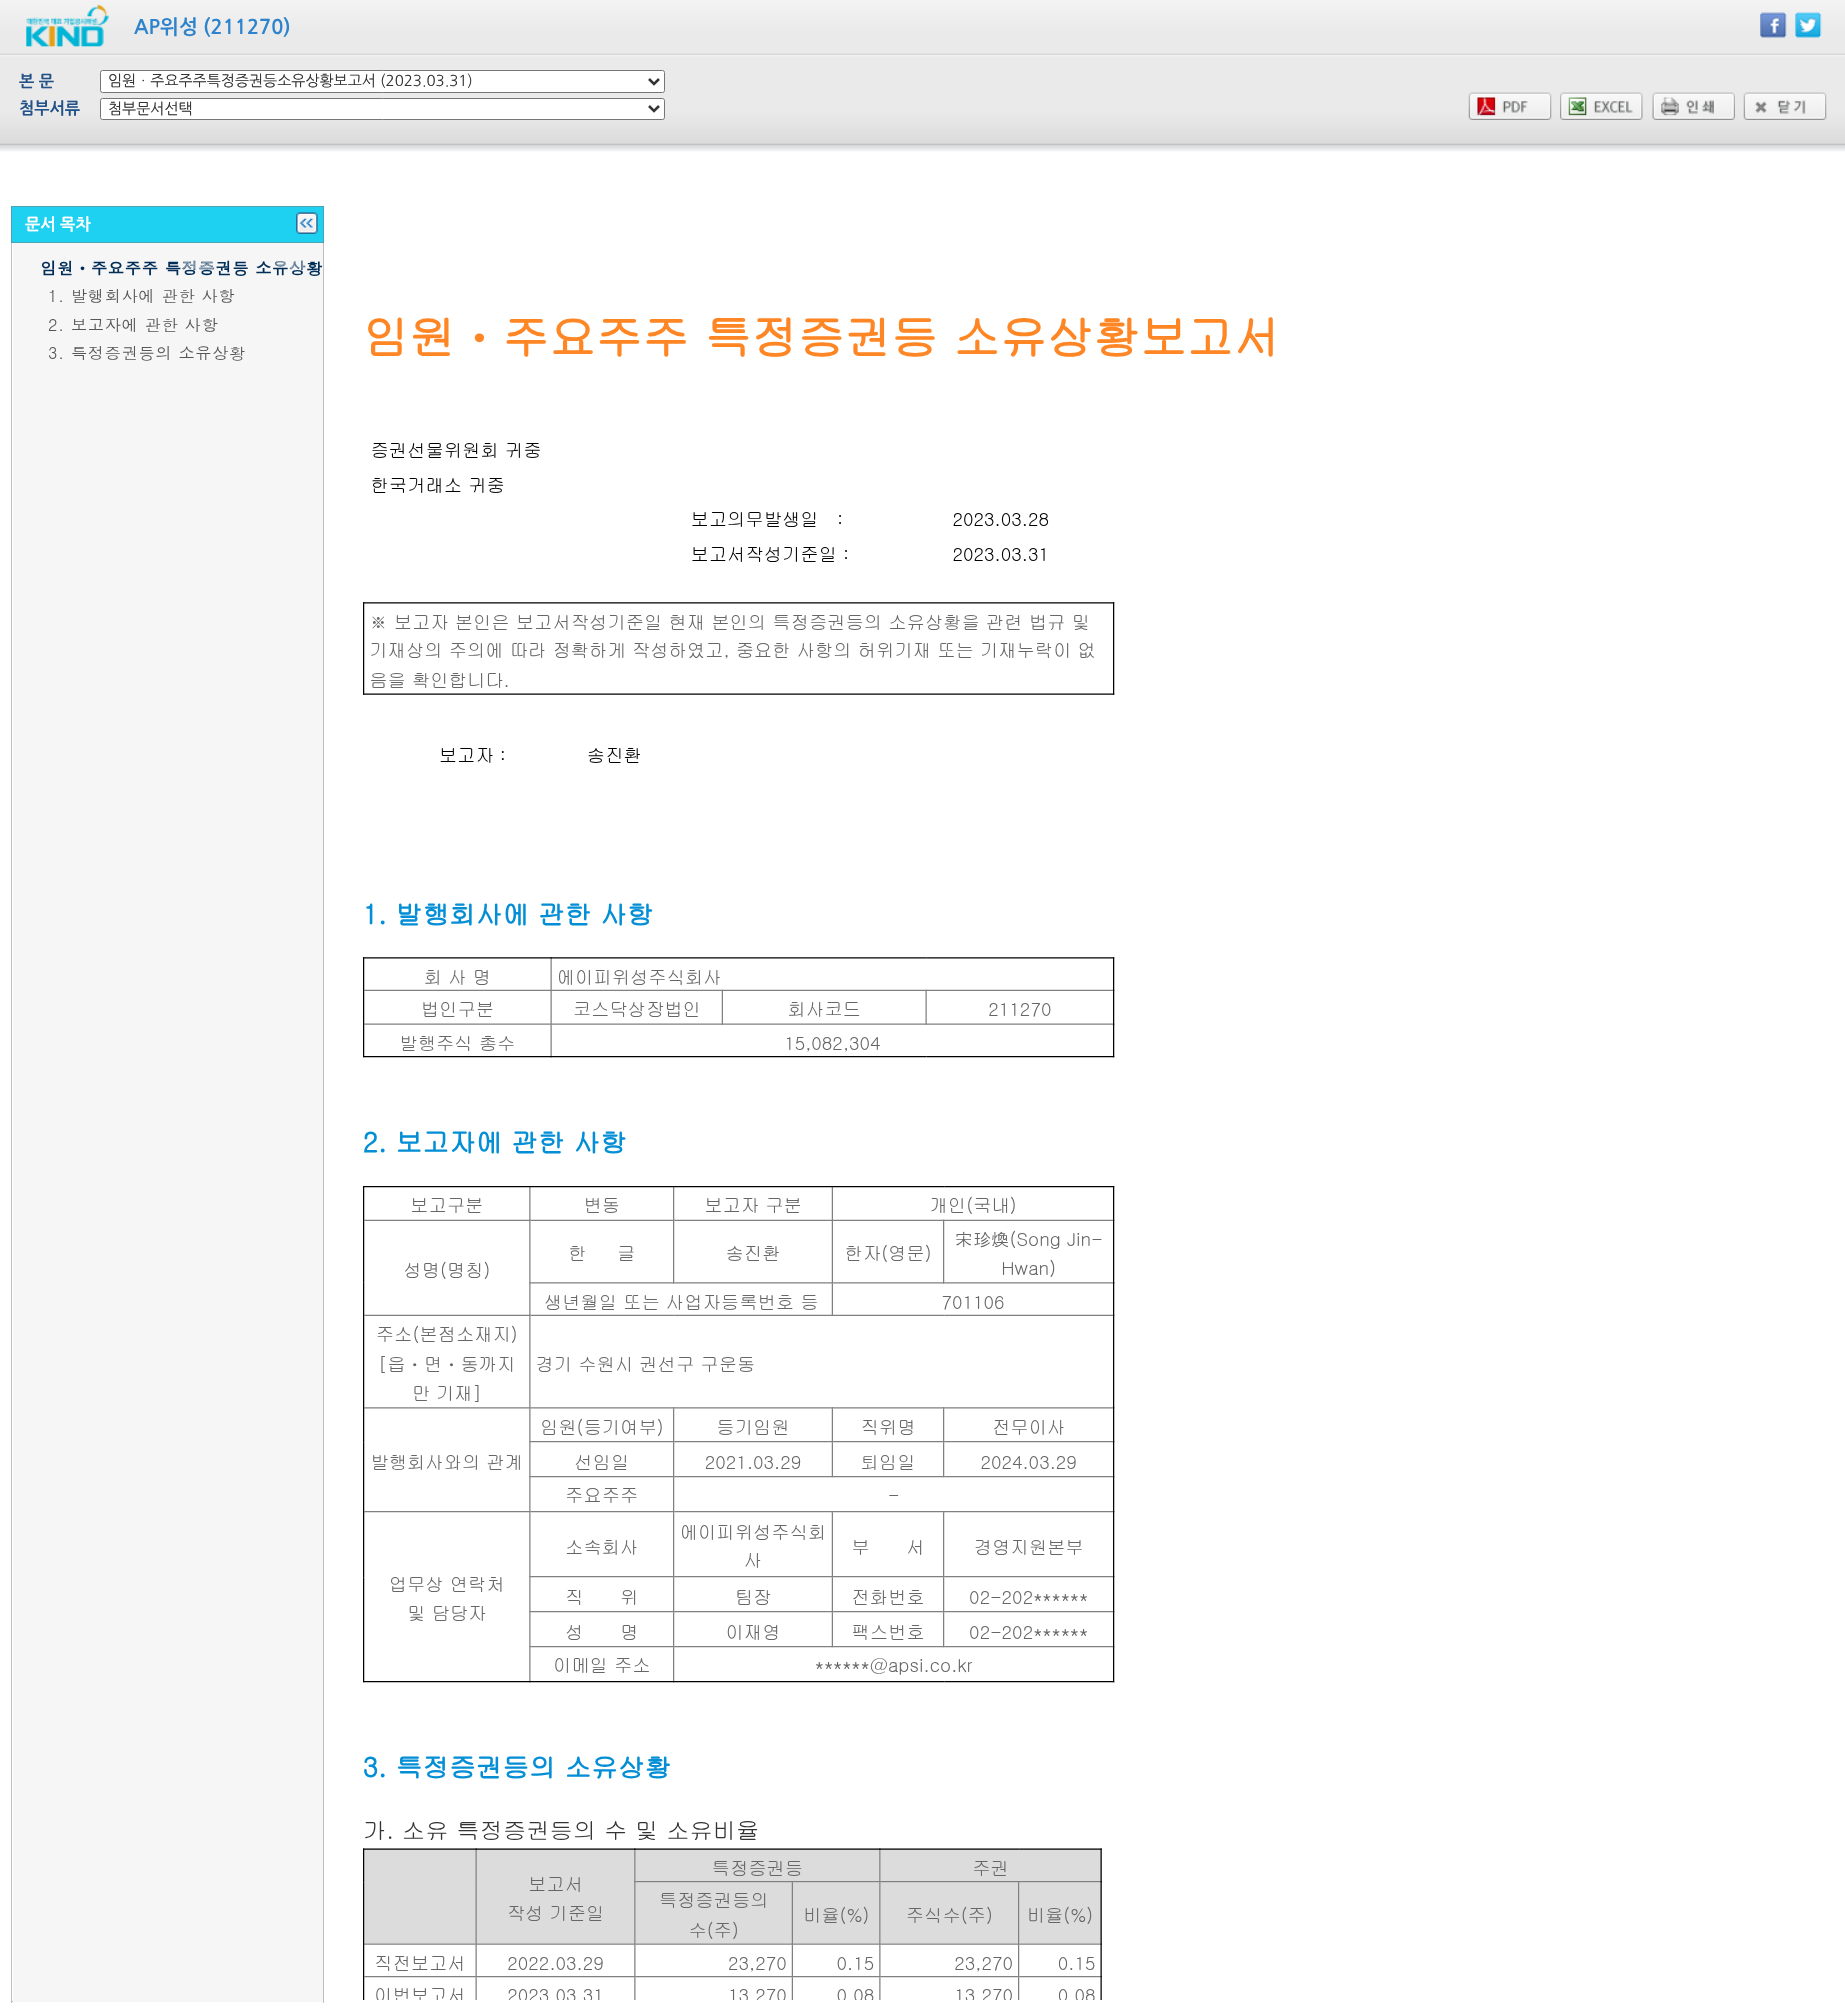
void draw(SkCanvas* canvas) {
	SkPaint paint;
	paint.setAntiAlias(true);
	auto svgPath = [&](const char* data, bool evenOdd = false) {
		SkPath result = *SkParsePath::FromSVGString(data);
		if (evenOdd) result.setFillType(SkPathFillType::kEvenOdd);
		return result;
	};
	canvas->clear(0xffffffff);
	canvas->drawImageRect(SkImages::DeferredFromEncodedData(SkData::MakeFromFileName("img1.png")), SkRect::MakeXYWH(0, 0, 1845, 152), SkSamplingOptions());
	canvas->drawImageRect(SkImages::DeferredFromEncodedData(SkData::MakeFromFileName("img2.png")), SkRect::MakeXYWH(26, 4, 83, 43), SkSamplingOptions());
	SkFont f1(fontMgr->matchFamilyStyle("NanumGothic", SkFontStyle::Bold()), 20);
	f1.setSubpixel(true);
	paint.setColor(0xff2d84cd);
	canvas->drawString("AP위성 (211270)", 134, 34, f1, paint);
	canvas->drawImageRect(SkImages::DeferredFromEncodedData(SkData::MakeFromFileName("img3.png")), SkRect::MakeXYWH(1760, 12, 27, 26), SkSamplingOptions());
	canvas->drawImageRect(SkImages::DeferredFromEncodedData(SkData::MakeFromFileName("img4.png")), SkRect::MakeXYWH(1795, 12, 27, 26), SkSamplingOptions());
	SkFont f2(fontMgr->matchFamilyStyle("NanumGothic", SkFontStyle::Bold()), 16.25);
	f2.setSubpixel(true);
	paint.setColor(0xff225287);
	canvas->drawString("본 문", 19, 87, f2, paint);
	paint.setColor(0xffffffff);
	canvas->drawRoundRect(SkRect::MakeXYWH(100.5, 70.5, 564, 22), 2, 2, paint);
	paint.setStroke(true);
	paint.setStrokeWidth(1);
	paint.setColor(0xff767676);
	canvas->drawRoundRect(SkRect::MakeXYWH(100.5, 70.5, 564, 22), 2, 2, paint);
	paint.setStrokeWidth(2.5);
	paint.setColor(0xff333333);
	canvas->drawPath(svgPath("M649 79L654 84L659 79"), paint);
	SkFont f3(fontMgr->matchFamilyStyle("NanumGothic", SkFontStyle::Normal()), 15);
	f3.setSubpixel(true);
	paint.setStroke(false);
	canvas->drawString("임원ㆍ주요주주특정증권등소유상황보고서 (2023.03.31)", 108, 86, f3, paint);
	paint.setColor(0xff225287);
	canvas->drawString("첨부서류", 19, 114, f2, paint);
	paint.setColor(0xffffffff);
	canvas->drawRoundRect(SkRect::MakeXYWH(100.5, 98.5, 564, 21), 2, 2, paint);
	paint.setStroke(true);
	paint.setStrokeWidth(1);
	paint.setColor(0xff767676);
	canvas->drawRoundRect(SkRect::MakeXYWH(100.5, 98.5, 564, 21), 2, 2, paint);
	paint.setStrokeWidth(2.5);
	paint.setColor(0xff333333);
	canvas->drawPath(svgPath("M649 106L654 111L659 106"), paint);
	paint.setStroke(false);
	canvas->drawString("첨부문서선택", 108, 114, f3, paint);
	canvas->drawImageRect(SkImages::DeferredFromEncodedData(SkData::MakeFromFileName("img5.png")), SkRect::MakeXYWH(1468, 92, 84, 28), SkSamplingOptions());
	canvas->drawImageRect(SkImages::DeferredFromEncodedData(SkData::MakeFromFileName("img6.png")), SkRect::MakeXYWH(1560, 92, 83, 28), SkSamplingOptions());
	canvas->drawImageRect(SkImages::DeferredFromEncodedData(SkData::MakeFromFileName("img7.png")), SkRect::MakeXYWH(1652, 92, 83, 28), SkSamplingOptions());
	canvas->drawImageRect(SkImages::DeferredFromEncodedData(SkData::MakeFromFileName("img8.png")), SkRect::MakeXYWH(1743, 92, 84, 28), SkSamplingOptions());
	paint.setColor(0xff1fd1f1);
	canvas->drawRect(SkRect::MakeXYWH(11.5, 206.5, 312, 36), paint);
	paint.setStroke(true);
	paint.setStrokeWidth(1);
	paint.setColor(0xff4fa2b1);
	canvas->drawRect(SkRect::MakeXYWH(11.5, 206.5, 312, 36), paint);
	paint.setStroke(false);
	paint.setColor(0xffffffff);
	canvas->drawString("문서 목차", 25, 230, f2, paint);
	canvas->drawImageRect(SkImages::DeferredFromEncodedData(SkData::MakeFromFileName("img9.png")), SkRect::MakeXYWH(296, 212, 22, 22), SkSamplingOptions());
	paint.setColor(0xffbfbfbf);
	canvas->drawRect(SkRect::MakeXYWH(323, 243, 1, 1760), paint);
	canvas->drawRect(SkRect::MakeXYWH(11, 2001, 313, 1), paint);
	canvas->drawRect(SkRect::MakeXYWH(11, 243, 1, 1760), paint);
	canvas->drawImageRect(SkImages::DeferredFromEncodedData(SkData::MakeFromFileName("img10.png")), SkRect::MakeXYWH(13, 243, 310, 1759), SkSamplingOptions());
	canvas->drawImageRect(SkImages::DeferredFromEncodedData(SkData::MakeFromFileName("img11.png")), SkRect::MakeXYWH(363, 317, 910, 1683), SkSamplingOptions());
}
